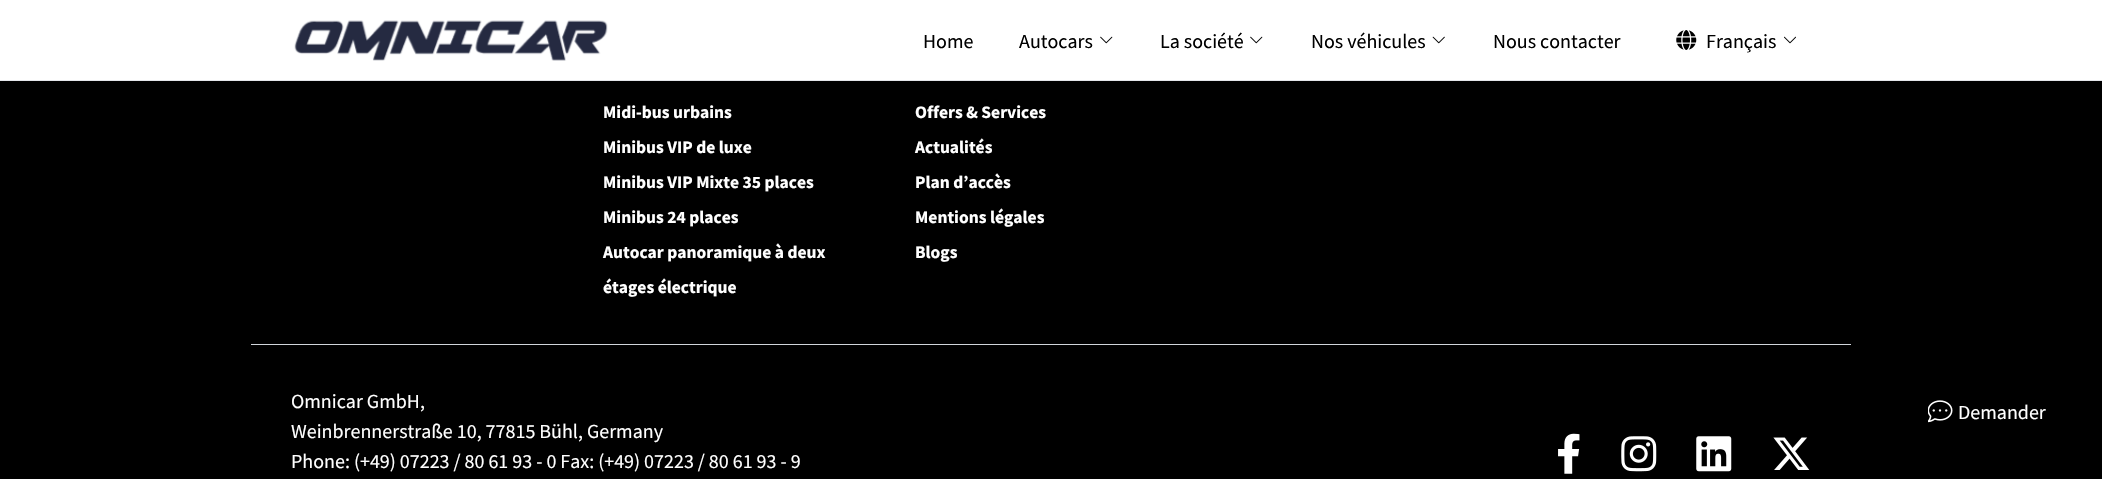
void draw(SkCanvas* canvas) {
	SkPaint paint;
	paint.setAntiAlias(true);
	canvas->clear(0xff000000);
	paint.setColor(0xffffffff);
	canvas->drawRect(SkRect::MakeXYWH(0, 0, 2102, 80), paint);
	paint.setColor(0xffe5e7eb);
	canvas->drawRect(SkRect::MakeXYWH(0, 80, 2102, 1), paint);
	canvas->drawImageRect(SkImages::DeferredFromEncodedData(SkData::MakeFromFileName("img1.png")), SkRect::MakeXYWH(294, 20, 314, 41), SkSamplingOptions());
	SkFont f1(fontMgr->matchFamilyStyle("Source Sans Pro", SkFontStyle::Normal()), 20);
	f1.setSubpixel(true);
	paint.setColor(0xff000000);
	canvas->drawString("Home", 923, 48, f1, paint);
	canvas->drawString("Autocars", 1019, 48, f1, paint);
	canvas->drawImageRect(SkImages::DeferredFromEncodedData(SkData::MakeFromFileName("img2.png")), SkRect::MakeXYWH(1100, 36, 13, 8), SkSamplingOptions());
	canvas->drawString("La société", 1160, 48, f1, paint);
	canvas->drawImageRect(SkImages::DeferredFromEncodedData(SkData::MakeFromFileName("img2.png")), SkRect::MakeXYWH(1250, 36, 13, 8), SkSamplingOptions());
	canvas->drawString("Nos véhicules", 1311, 48, f1, paint);
	canvas->drawImageRect(SkImages::DeferredFromEncodedData(SkData::MakeFromFileName("img3.png")), SkRect::MakeXYWH(1432, 36, 13, 8), SkSamplingOptions());
	canvas->drawString("Nous contacter", 1493, 48, f1, paint);
	canvas->drawImageRect(SkImages::DeferredFromEncodedData(SkData::MakeFromFileName("img4.png")), SkRect::MakeXYWH(1676, 30, 21, 20), SkSamplingOptions());
	canvas->drawString("Français", 1706, 48, f1, paint);
	canvas->drawImageRect(SkImages::DeferredFromEncodedData(SkData::MakeFromFileName("img5.png")), SkRect::MakeXYWH(1784, 36, 12, 8), SkSamplingOptions());
	SkFont f2(fontMgr->matchFamilyStyle("Source Sans Pro", SkFontStyle::Bold()), 17.5);
	f2.setSubpixel(true);
	paint.setColor(0xffffffff);
	canvas->drawString("Midi-bus urbains", 603, 118, f2, paint);
	canvas->drawString("Minibus VIP de luxe", 603, 153, f2, paint);
	canvas->drawString("Minibus VIP Mixte 35 places", 603, 188, f2, paint);
	canvas->drawString("Minibus 24 places", 603, 223, f2, paint);
	canvas->drawString("Autocar panoramique à deux", 603, 258, f2, paint);
	canvas->drawString("étages électrique", 603, 293, f2, paint);
	canvas->drawString("Offers & Services", 915, 118, f2, paint);
	canvas->drawString("Actualités", 915, 153, f2, paint);
	canvas->drawString("Plan d’accès", 915, 188, f2, paint);
	canvas->drawString("Mentions légales", 915, 223, f2, paint);
	canvas->drawString("Blogs", 915, 258, f2, paint);
	paint.setColor(0xffd1d5db);
	canvas->drawRect(SkRect::MakeXYWH(251, 344, 1600, 1), paint);
	paint.setColor(0xffffffff);
	canvas->drawString("Omnicar GmbH,", 291, 408, f1, paint);
	canvas->drawString("Weinbrennerstraße 10, 77815 Bühl, Germany", 291, 438, f1, paint);
	canvas->drawString("Phone: (+49) 07223 / 80 61 93 - 0 Fax: (+49) 07223 / 80 61 93 - 9", 291, 468, f1, paint);
	canvas->drawImageRect(SkImages::DeferredFromEncodedData(SkData::MakeFromFileName("img6.png")), SkRect::MakeXYWH(1558, 433, 22, 41), SkSamplingOptions());
	canvas->drawImageRect(SkImages::DeferredFromEncodedData(SkData::MakeFromFileName("img7.png")), SkRect::MakeXYWH(1621, 436, 36, 36), SkSamplingOptions());
	canvas->drawImageRect(SkImages::DeferredFromEncodedData(SkData::MakeFromFileName("img8.png")), SkRect::MakeXYWH(1696, 436, 36, 36), SkSamplingOptions());
	canvas->drawImageRect(SkImages::DeferredFromEncodedData(SkData::MakeFromFileName("img9.png")), SkRect::MakeXYWH(1773, 437, 37, 33), SkSamplingOptions());
	canvas->drawImageRect(SkImages::DeferredFromEncodedData(SkData::MakeFromFileName("img10.png")), SkRect::MakeXYWH(1928, 400, 25, 23), SkSamplingOptions());
	canvas->drawString("Demander", 1958, 419, f1, paint);
}
